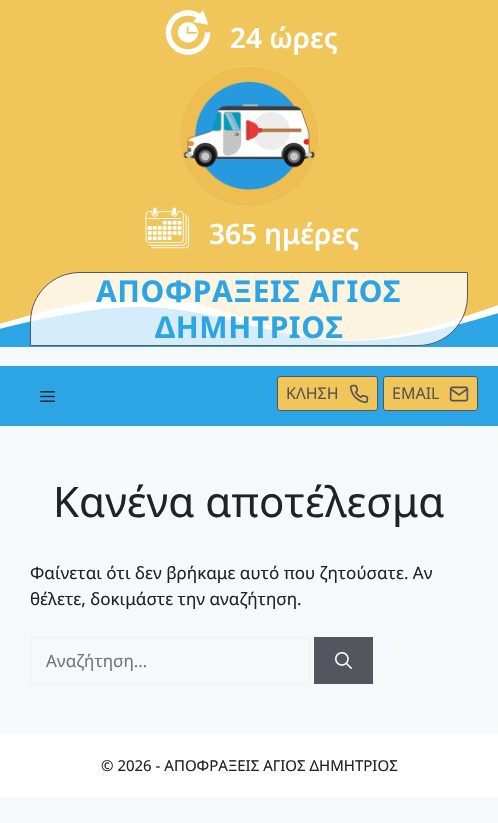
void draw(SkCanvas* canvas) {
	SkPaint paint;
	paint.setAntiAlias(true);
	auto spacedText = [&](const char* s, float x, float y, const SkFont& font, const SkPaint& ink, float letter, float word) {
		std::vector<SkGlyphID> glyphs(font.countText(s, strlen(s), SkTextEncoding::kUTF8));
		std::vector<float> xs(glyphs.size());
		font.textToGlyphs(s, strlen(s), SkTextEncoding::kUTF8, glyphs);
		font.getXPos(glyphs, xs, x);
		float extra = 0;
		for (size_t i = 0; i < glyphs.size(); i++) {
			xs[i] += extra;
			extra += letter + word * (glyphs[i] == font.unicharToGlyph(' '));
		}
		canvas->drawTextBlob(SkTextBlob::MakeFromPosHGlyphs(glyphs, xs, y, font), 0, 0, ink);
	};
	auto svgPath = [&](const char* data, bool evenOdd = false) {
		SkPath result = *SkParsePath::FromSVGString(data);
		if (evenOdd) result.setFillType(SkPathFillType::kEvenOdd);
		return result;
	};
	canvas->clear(0xfff7f8f9);
	paint.setColor(0xfff0c65a);
	canvas->drawRect(SkRect::MakeXYWH(0, 0, 498, 340), paint);
	canvas->drawImageRect(SkImages::DeferredFromEncodedData(SkData::MakeFromFileName("img1.png")), SkRect::MakeXYWH(165, 10, 46, 45), SkSamplingOptions());
	SkFont f1(fontMgr->matchFamilyStyle("Noto Sans", SkFontStyle(600, SkFontStyle::kNormal_Width, SkFontStyle::kUpright_Slant)), 28);
	f1.setSubpixel(true);
	paint.setColor(0xffffffff);
	canvas->drawString("24 ώρες", 230, 48, f1, paint);
	canvas->drawImageRect(SkImages::DeferredFromEncodedData(SkData::MakeFromFileName("img2.png")), SkRect::MakeXYWH(179, 66, 140, 140), SkSamplingOptions());
	canvas->drawImageRect(SkImages::DeferredFromEncodedData(SkData::MakeFromFileName("img3.png")), SkRect::MakeXYWH(145, 207, 45, 42), SkSamplingOptions());
	canvas->drawString("365 ημέρες", 209, 244, f1, paint);
	canvas->drawPath(svgPath("M-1 347H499V305C451 321 404 339 353 340C295 340 243 313 187 302C120 289 62 306-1 324Z"), paint);
	paint.setColor(0xff2da5e5);
	canvas->drawPath(svgPath("M-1 347H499V313C451 327 403 341 353 341C296 342 242 320 187 311C121 300 62 314-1 329Z"), paint);
	paint.setColor(0xccffffff);
	canvas->drawPath(svgPath("M80 272.5H467.5V296C467.5 323.5 445.5 345.5 418 345.5H30.5V322C30.5 294.5 52.5 272.5 80 272.5Z"), paint);
	paint.setStroke(true);
	paint.setStrokeWidth(1);
	paint.setColor(0xff575760);
	canvas->drawPath(svgPath("M80 272.5H467.5V296C467.5 323.5 445.5 345.5 418 345.5H30.5V322C30.5 294.5 52.5 272.5 80 272.5Z"), paint);
	SkFont f2(fontMgr->matchFamilyStyle("Noto Sans", SkFontStyle::Bold()), 30);
	f2.setSubpixel(true);
	paint.setStroke(false);
	paint.setColor(0xff2da5e5);
	spacedText("ΑΠΟΦΡΑΞΕΙΣ ΑΓΙΟΣ", 96, 302, f2, paint, 0.6, 0);
	spacedText("ΔΗΜΗΤΡΙΟΣ", 155, 338, f2, paint, 0.6, 0);
	canvas->drawRect(SkRect::MakeXYWH(0, 366, 498, 60), paint);
	canvas->drawImageRect(SkImages::DeferredFromEncodedData(SkData::MakeFromFileName("img4.png")), SkRect::MakeXYWH(40, 391, 15, 11), SkSamplingOptions());
	paint.setColor(0xfff0c65a);
	canvas->drawRoundRect(SkRect::MakeXYWH(277.5, 376.5, 100, 34), 2.5, 2.5, paint);
	paint.setStroke(true);
	paint.setColor(0xff555555);
	canvas->drawRoundRect(SkRect::MakeXYWH(277.5, 376.5, 100, 34), 2.5, 2.5, paint);
	SkFont f3(fontMgr->matchFamilyStyle("Noto Sans", SkFontStyle::Normal()), 16);
	f3.setSubpixel(true);
	paint.setStroke(false);
	canvas->drawString("ΚΛΗΣΗ", 286, 399, f3, paint);
	canvas->drawImageRect(SkImages::DeferredFromEncodedData(SkData::MakeFromFileName("img5.png")), SkRect::MakeXYWH(349, 384, 20, 20), SkSamplingOptions());
	paint.setColor(0xfff0c65a);
	canvas->drawRoundRect(SkRect::MakeXYWH(383.5, 376.5, 94, 34), 2.5, 2.5, paint);
	paint.setStroke(true);
	paint.setColor(0xff555555);
	canvas->drawRoundRect(SkRect::MakeXYWH(383.5, 376.5, 94, 34), 2.5, 2.5, paint);
	paint.setStroke(false);
	canvas->drawString("EMAIL", 392, 399, f3, paint);
	canvas->drawImageRect(SkImages::DeferredFromEncodedData(SkData::MakeFromFileName("img6.png")), SkRect::MakeXYWH(449, 386, 20, 16), SkSamplingOptions());
	SkFont f4(fontMgr->matchFamilyStyle("Noto Sans", SkFontStyle::Normal()), 42);
	f4.setSubpixel(true);
	paint.setColor(0xff222222);
	canvas->drawString("Κανένα αποτέλεσμα", 53, 517, f4, paint);
	SkFont f5(fontMgr->matchFamilyStyle("Noto Sans", SkFontStyle::Normal()), 17);
	f5.setSubpixel(true);
	canvas->drawString("Φαίνεται ότι δεν βρήκαμε αυτό που ζητούσατε. Αν", 30, 579, f5, paint);
	canvas->drawString("θέλετε, δοκιμάστε την αναζήτηση.", 30, 605, f5, paint);
	paint.setStroke(true);
	paint.setColor(0xfff0f0f0);
	canvas->drawRect(SkRect::MakeXYWH(30.5, 637.5, 279, 46), paint);
	paint.setStroke(false);
	paint.setColor(0xff757575);
	canvas->drawString("Αναζήτηση…", 46, 667, f5, paint);
	paint.setColor(0xff55555e);
	canvas->drawRect(SkRect::MakeXYWH(314, 637, 59, 47), paint);
	canvas->drawImageRect(SkImages::DeferredFromEncodedData(SkData::MakeFromFileName("img7.png")), SkRect::MakeXYWH(335, 652, 17, 17), SkSamplingOptions());
	paint.setColor(0xffffffff);
	canvas->drawRect(SkRect::MakeXYWH(0, 734, 498, 63), paint);
	SkFont f6(fontMgr->matchFamilyStyle("Noto Sans", SkFontStyle::Normal()), 15);
	f6.setSubpixel(true);
	paint.setColor(0xff222222);
	canvas->drawString("© 2026 - ΑΠΟΦΡΑΞΕΙΣ ΑΓΙΟΣ ΔΗΜΗΤΡΙΟΣ", 101, 771, f6, paint);
}
